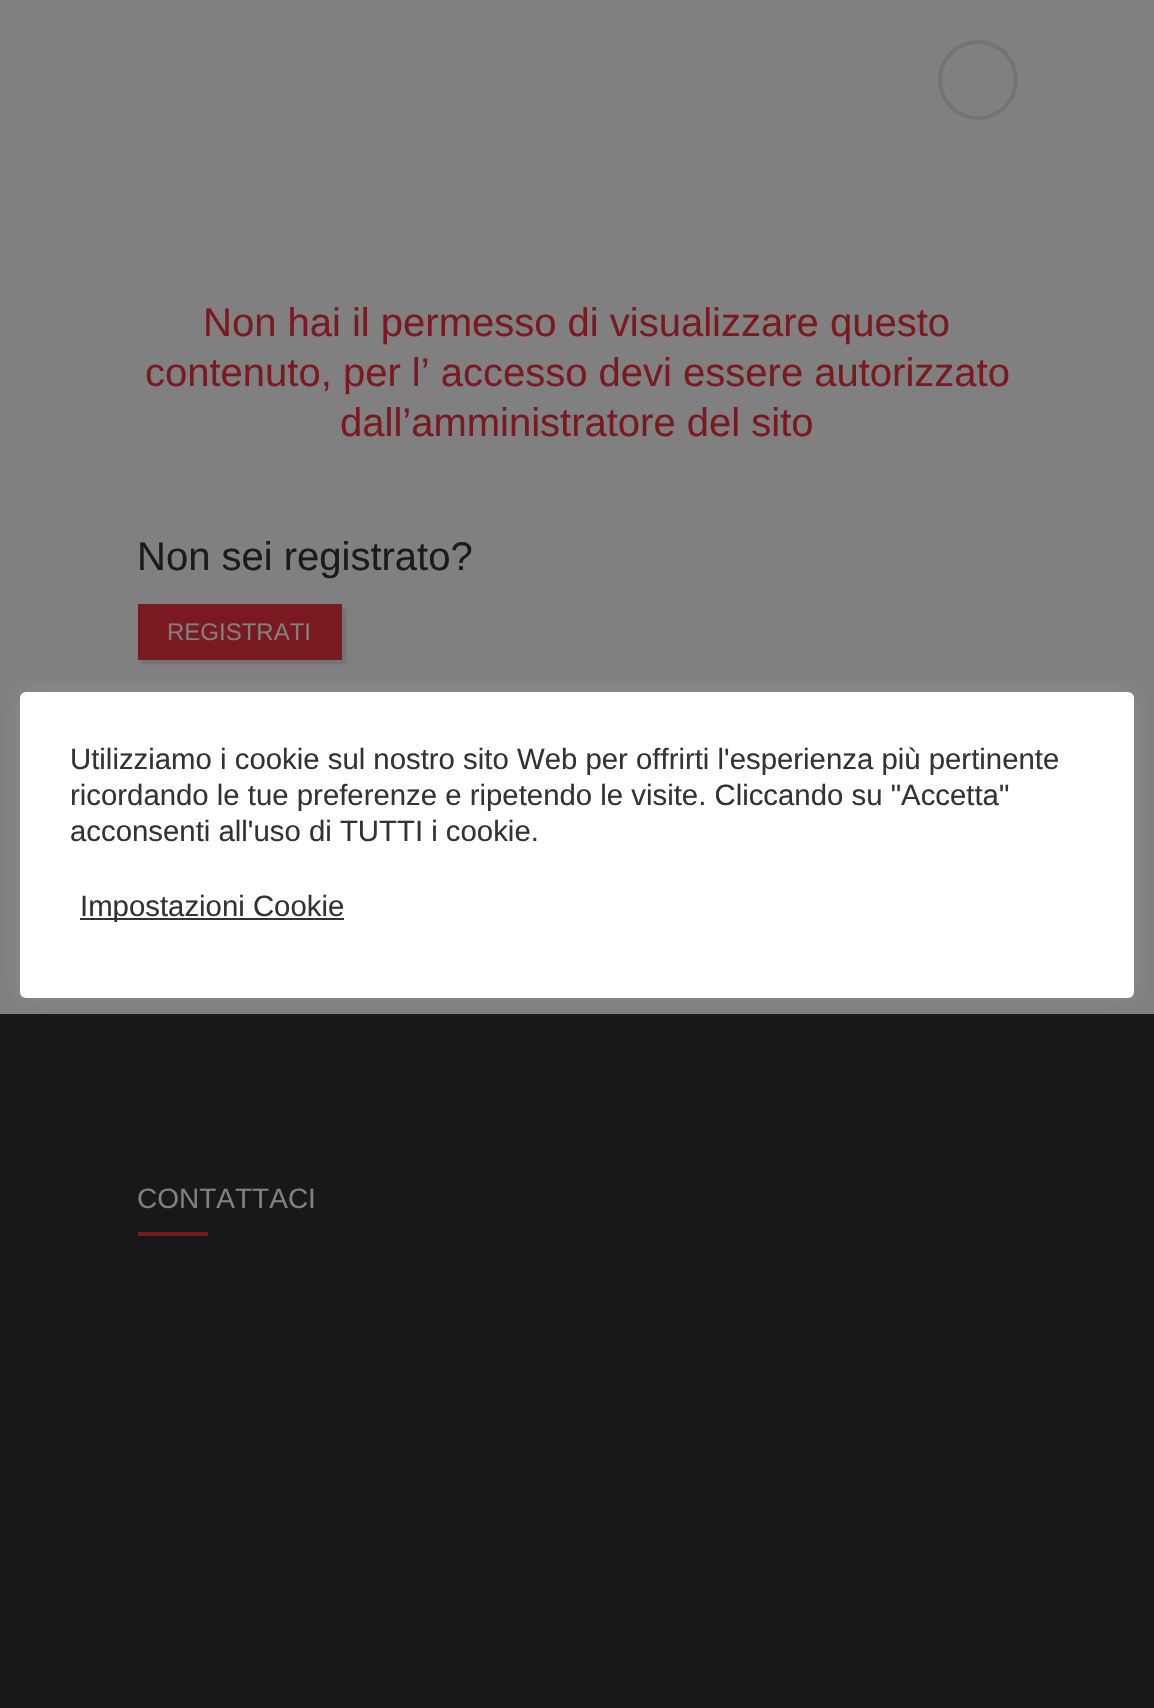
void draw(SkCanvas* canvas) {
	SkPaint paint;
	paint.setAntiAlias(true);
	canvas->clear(0xff808080);
	paint.setStroke(true);
	paint.setStrokeWidth(4);
	paint.setColor(0xff737373);
	canvas->drawCircle(978, 80, 38, paint);
	SkFont f1(fontMgr->matchFamilyStyle("Liberation Sans", SkFontStyle::Normal()), 40);
	f1.setSubpixel(true);
	paint.setStroke(false);
	paint.setColor(0xff7a1920);
	canvas->drawString("Non hai il permesso di visualizzare questo", 203, 336, f1, paint);
	canvas->drawString("contenuto, per l’ accesso devi essere autorizzato", 145, 386, f1, paint);
	canvas->drawString("dall’amministratore del sito", 340, 436, f1, paint);
	paint.setColor(0xff1c1b1b);
	canvas->drawString("Non sei registrato?", 137, 570, f1, paint);
	paint.setColor(0x1a000000);
	paint.setMaskFilter(SkMaskFilter::MakeBlur(kNormal_SkBlurStyle, 1));
	canvas->drawRect(SkRect::MakeXYWH(142, 608, 204, 56), paint);
	paint.setMaskFilter(nullptr);
	paint.setColor(0xff7a1920);
	canvas->drawRect(SkRect::MakeXYWH(138, 604, 204, 56), paint);
	SkFont f2(fontMgr->matchFamilyStyle("Liberation Sans", SkFontStyle::Normal()), 24);
	f2.setSubpixel(true);
	paint.setColor(0xff808080);
	canvas->drawString("REGISTRATI", 167, 640, f2, paint);
	paint.setColor(0xff16181a);
	canvas->drawRect(SkRect::MakeXYWH(0, 1014, 1154, 694), paint);
	SkFont f3(fontMgr->matchFamilyStyle("Liberation Sans", SkFontStyle::Normal()), 28);
	f3.setSubpixel(true);
	paint.setColor(0xff808080);
	canvas->drawString("CONTATTACI", 137, 1208, f3, paint);
	paint.setColor(0xff7a1920);
	canvas->drawRect(SkRect::MakeXYWH(138, 1232, 70, 4), paint);
	paint.setColor(0x4dacabab);
	paint.setMaskFilter(SkMaskFilter::MakeBlur(kNormal_SkBlurStyle, 10));
	canvas->drawRoundRect(SkRect::MakeXYWH(20, 690, 1114, 306), 6, 6, paint);
	paint.setMaskFilter(nullptr);
	paint.setColor(0xffffffff);
	canvas->drawRoundRect(SkRect::MakeXYWH(20, 692, 1114, 306), 6, 6, paint);
	SkFont f4(fontMgr->matchFamilyStyle("Liberation Sans", SkFontStyle::Normal()), 29.35);
	f4.setSubpixel(true);
	paint.setColor(0xff333333);
	canvas->drawString("Utilizziamo i cookie sul nostro sito Web per offrirti l'esperienza più pertinente", 70, 769, f4, paint);
	canvas->drawString("ricordando le tue preferenze e ripetendo le visite. Cliccando su \"Accetta\"", 70, 805, f4, paint);
	canvas->drawString("acconsenti all'uso di TUTTI i cookie.", 70, 841, f4, paint);
	canvas->drawRect(SkRect::MakeXYWH(80, 918, 264, 2), paint);
	canvas->drawString("Impostazioni Cookie", 80, 916, f4, paint);
}
